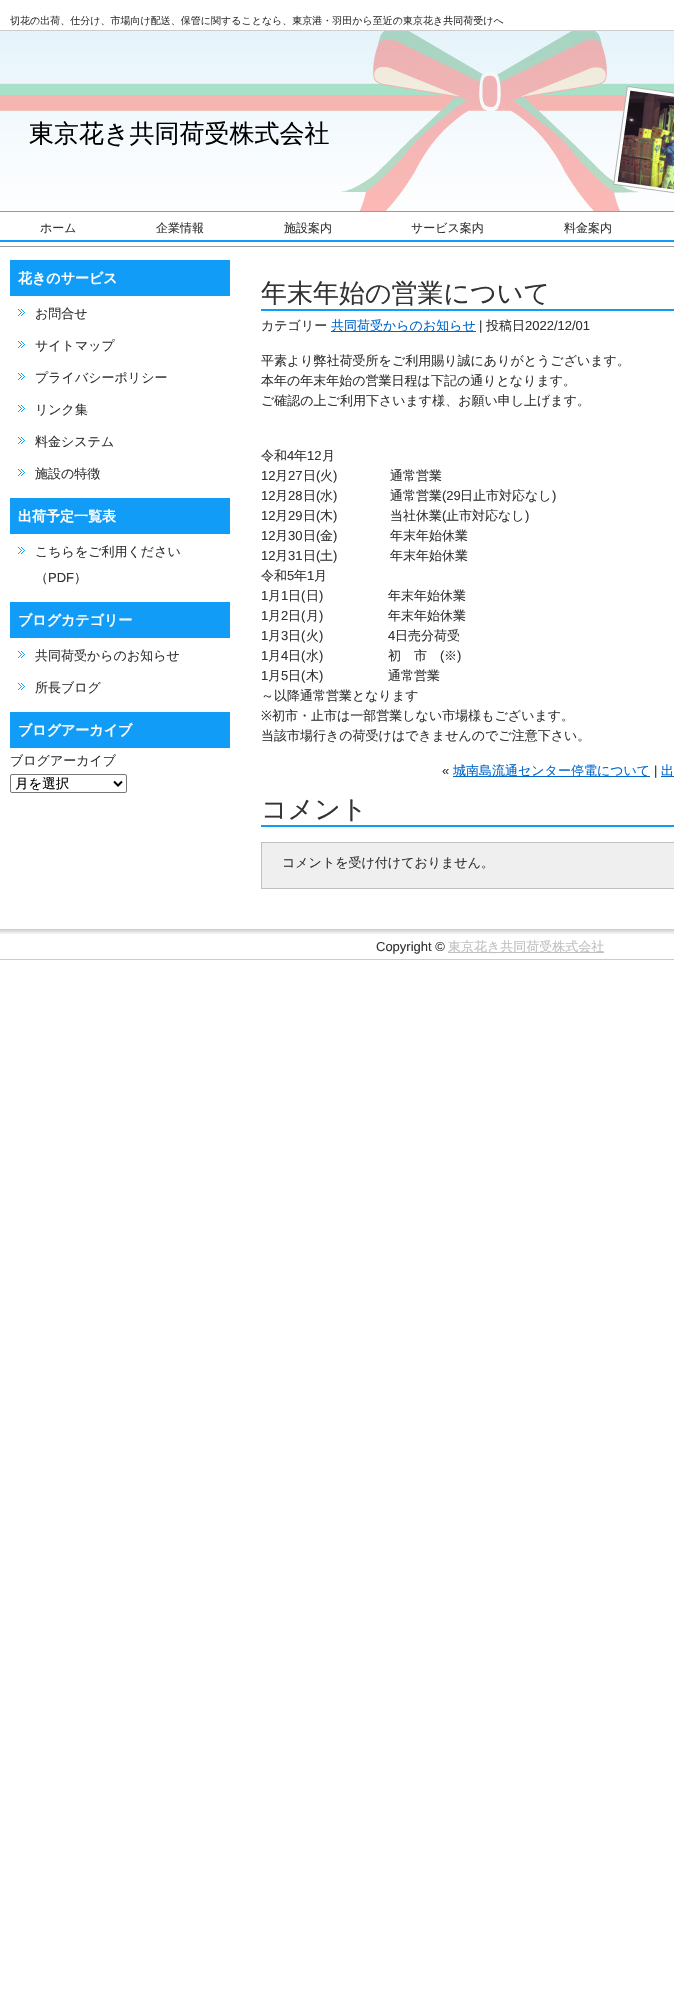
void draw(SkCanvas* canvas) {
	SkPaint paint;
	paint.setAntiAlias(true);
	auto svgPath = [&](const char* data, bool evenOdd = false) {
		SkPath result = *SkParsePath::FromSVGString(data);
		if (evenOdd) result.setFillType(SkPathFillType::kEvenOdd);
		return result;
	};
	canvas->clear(0xffffffff);
	paint.setColor(0xffcccccc);
	canvas->drawRect(SkRect::MakeXYWH(0, 30, 674, 1), paint);
	SkFont f1(fontMgr->matchFamilyStyle("WenQuanYi Zen Hei", SkFontStyle(500, SkFontStyle::kNormal_Width, SkFontStyle::kUpright_Slant)), 10);
	f1.setSubpixel(true);
	paint.setColor(0xff333333);
	canvas->drawString("切花の出荷、仕分け、市場向け配送、保管に関することなら、東京港・羽田から至近の東京花き共同荷受けへ", 10, 24, f1, paint);
	canvas->drawImageRect(SkImages::DeferredFromEncodedData(SkData::MakeFromFileName("img1.png")), SkRect::MakeXYWH(0, 31, 674, 180), SkSamplingOptions());
	SkFont f2(fontMgr->matchFamilyStyle("WenQuanYi Zen Hei", SkFontStyle(500, SkFontStyle::kNormal_Width, SkFontStyle::kUpright_Slant)), 25);
	f2.setSubpixel(true);
	paint.setColor(0xff000000);
	canvas->drawString("東京花き共同荷受株式会社", 29, 142, f2, paint);
	canvas->drawImageRect(SkImages::DeferredFromEncodedData(SkData::MakeFromFileName("img2.png")), SkRect::MakeXYWH(0, 211, 674, 36), SkSamplingOptions());
	SkFont f3(fontMgr->matchFamilyStyle("WenQuanYi Zen Hei", SkFontStyle(500, SkFontStyle::kNormal_Width, SkFontStyle::kUpright_Slant)), 12);
	f3.setSubpixel(true);
	paint.setColor(0xff333333);
	canvas->drawString("ホーム", 40, 232, f3, paint);
	canvas->drawString("企業情報", 156, 232, f3, paint);
	canvas->drawString("施設案内", 284, 232, f3, paint);
	canvas->drawString("サービス案内", 411, 232, f3, paint);
	canvas->drawString("料金案内", 564, 232, f3, paint);
	paint.setColor(0xff119cf7);
	canvas->drawRect(SkRect::MakeXYWH(10, 260, 220, 36), paint);
	SkFont f4(fontMgr->matchFamilyStyle("WenQuanYi Zen Hei", SkFontStyle::Bold()), 14);
	f4.setSubpixel(true);
	paint.setColor(0xffffffff);
	canvas->drawString("花きのサービス", 18, 283, f4, paint);
	canvas->drawImageRect(SkImages::DeferredFromEncodedData(SkData::MakeFromFileName("img3.png")), SkRect::MakeXYWH(18, 309, 7, 7), SkSamplingOptions());
	SkFont f5(fontMgr->matchFamilyStyle("WenQuanYi Zen Hei", SkFontStyle(500, SkFontStyle::kNormal_Width, SkFontStyle::kUpright_Slant)), 13);
	f5.setSubpixel(true);
	paint.setColor(0xff333333);
	canvas->drawString("お問合せ", 35, 318, f5, paint);
	canvas->drawImageRect(SkImages::DeferredFromEncodedData(SkData::MakeFromFileName("img3.png")), SkRect::MakeXYWH(18, 341, 7, 7), SkSamplingOptions());
	canvas->drawString("サイトマップ", 35, 350, f5, paint);
	canvas->drawImageRect(SkImages::DeferredFromEncodedData(SkData::MakeFromFileName("img3.png")), SkRect::MakeXYWH(18, 373, 7, 7), SkSamplingOptions());
	canvas->drawString("プライバシーポリシー", 35, 382, f5, paint);
	canvas->drawImageRect(SkImages::DeferredFromEncodedData(SkData::MakeFromFileName("img3.png")), SkRect::MakeXYWH(18, 405, 7, 7), SkSamplingOptions());
	canvas->drawString("リンク集", 35, 414, f5, paint);
	canvas->drawImageRect(SkImages::DeferredFromEncodedData(SkData::MakeFromFileName("img3.png")), SkRect::MakeXYWH(18, 437, 7, 7), SkSamplingOptions());
	canvas->drawString("料金システム", 35, 446, f5, paint);
	canvas->drawImageRect(SkImages::DeferredFromEncodedData(SkData::MakeFromFileName("img3.png")), SkRect::MakeXYWH(18, 469, 7, 7), SkSamplingOptions());
	canvas->drawString("施設の特徴", 35, 478, f5, paint);
	paint.setColor(0xff119cf7);
	canvas->drawRect(SkRect::MakeXYWH(10, 498, 220, 36), paint);
	paint.setColor(0xffffffff);
	canvas->drawString("出荷予定一覧表", 18, 521, f4, paint);
	canvas->drawImageRect(SkImages::DeferredFromEncodedData(SkData::MakeFromFileName("img3.png")), SkRect::MakeXYWH(18, 547, 7, 7), SkSamplingOptions());
	paint.setColor(0xff333333);
	canvas->drawString("こちらをご利用ください", 35, 556, f5, paint);
	canvas->drawString("（", 35, 582, f5, paint);
	SkFont f6(fontMgr->matchFamilyStyle("Liberation Sans", SkFontStyle::Normal()), 13);
	f6.setSubpixel(true);
	canvas->drawString("PDF", 48, 582, f6, paint);
	canvas->drawString("）", 74, 582, f5, paint);
	paint.setColor(0xff119cf7);
	canvas->drawRect(SkRect::MakeXYWH(10, 602, 220, 36), paint);
	paint.setColor(0xffffffff);
	canvas->drawString("ブログカテゴリー", 18, 625, f4, paint);
	canvas->drawImageRect(SkImages::DeferredFromEncodedData(SkData::MakeFromFileName("img3.png")), SkRect::MakeXYWH(18, 651, 7, 7), SkSamplingOptions());
	paint.setColor(0xff333333);
	canvas->drawString("共同荷受からのお知らせ", 35, 660, f5, paint);
	canvas->drawImageRect(SkImages::DeferredFromEncodedData(SkData::MakeFromFileName("img3.png")), SkRect::MakeXYWH(18, 683, 7, 7), SkSamplingOptions());
	canvas->drawString("所長ブログ", 35, 692, f5, paint);
	paint.setColor(0xff119cf7);
	canvas->drawRect(SkRect::MakeXYWH(10, 712, 220, 36), paint);
	paint.setColor(0xffffffff);
	canvas->drawString("ブログアーカイブ", 18, 735, f4, paint);
	paint.setColor(0xff333333);
	canvas->drawString("ブログアーカイブ", 10, 765, f5, paint);
	paint.setStroke(true);
	paint.setStrokeWidth(1);
	paint.setColor(0xff767676);
	canvas->drawRoundRect(SkRect::MakeXYWH(10.5, 774.5, 116, 18), 1.5, 1.5, paint);
	paint.setStrokeWidth(2);
	paint.setColor(0xff000000);
	canvas->drawPath(svgPath("M114 781.5L118 785.5L122 781.5"), paint);
	SkFont f7(fontMgr->matchFamilyStyle("WenQuanYi Zen Hei", SkFontStyle(500, SkFontStyle::kNormal_Width, SkFontStyle::kUpright_Slant)), 13.5);
	f7.setSubpixel(true);
	paint.setStroke(false);
	canvas->drawString("月を選択", 15, 788, f7, paint);
	paint.setColor(0xff119cf7);
	canvas->drawRect(SkRect::MakeXYWH(261, 309, 413, 2), paint);
	SkFont f8(fontMgr->matchFamilyStyle("WenQuanYi Zen Hei", SkFontStyle(500, SkFontStyle::kNormal_Width, SkFontStyle::kUpright_Slant)), 26);
	f8.setSubpixel(true);
	paint.setColor(0xff333333);
	canvas->drawString("年末年始の営業について", 261, 302, f8, paint);
	canvas->drawString("カテゴリー", 261, 330, f5, paint);
	paint.setColor(0xff0066cc);
	canvas->drawRect(SkRect::MakeXYWH(331, 331, 145, 1), paint);
	canvas->drawString("共同荷受からのお知らせ", 331, 330, f5, paint);
	paint.setColor(0xff333333);
	canvas->drawString("|", 479, 330, f6, paint);
	canvas->drawString("投稿日", 486, 330, f5, paint);
	canvas->drawString("2022/12/01", 525, 330, f6, paint);
	canvas->drawString("平素より弊社荷受所をご利用賜り誠にありがとうございます。", 261, 365, f5, paint);
	canvas->drawString("本年の年末年始の営業日程は下記の通りとなります。", 261, 385, f5, paint);
	canvas->drawString("ご確認の上ご利用下さいます様、お願い申し上げます。", 261, 405, f5, paint);
	canvas->drawString("令和", 261, 460, f5, paint);
	canvas->drawString("4", 287, 460, f6, paint);
	canvas->drawString("年", 294, 460, f5, paint);
	canvas->drawString("12", 307, 460, f6, paint);
	canvas->drawString("月", 322, 460, f5, paint);
	canvas->drawString("12", 261, 480, f6, paint);
	canvas->drawString("月", 275, 480, f5, paint);
	canvas->drawString("27", 288, 480, f6, paint);
	canvas->drawString("日", 303, 480, f5, paint);
	canvas->drawString("(", 316, 480, f6, paint);
	canvas->drawString("火", 320, 480, f5, paint);
	canvas->drawString(")", 333, 480, f6, paint);
	canvas->drawString("通常営業", 390, 480, f5, paint);
	canvas->drawString("12", 261, 500, f6, paint);
	canvas->drawString("月", 275, 500, f5, paint);
	canvas->drawString("28", 288, 500, f6, paint);
	canvas->drawString("日", 303, 500, f5, paint);
	canvas->drawString("(", 316, 500, f6, paint);
	canvas->drawString("水", 320, 500, f5, paint);
	canvas->drawString(")", 333, 500, f6, paint);
	canvas->drawString("通常営業", 390, 500, f5, paint);
	canvas->drawString("(29", 442, 500, f6, paint);
	canvas->drawString("日止市対応なし", 460, 500, f5, paint);
	canvas->drawString(")", 552, 500, f6, paint);
	canvas->drawString("12", 261, 520, f6, paint);
	canvas->drawString("月", 275, 520, f5, paint);
	canvas->drawString("29", 288, 520, f6, paint);
	canvas->drawString("日", 303, 520, f5, paint);
	canvas->drawString("(", 316, 520, f6, paint);
	canvas->drawString("木", 320, 520, f5, paint);
	canvas->drawString(")", 333, 520, f6, paint);
	canvas->drawString("当社休業", 390, 520, f5, paint);
	canvas->drawString("(", 442, 520, f6, paint);
	canvas->drawString("止市対応なし", 446, 520, f5, paint);
	canvas->drawString(")", 525, 520, f6, paint);
	canvas->drawString("12", 261, 540, f6, paint);
	canvas->drawString("月", 275, 540, f5, paint);
	canvas->drawString("30", 288, 540, f6, paint);
	canvas->drawString("日", 303, 540, f5, paint);
	canvas->drawString("(", 316, 540, f6, paint);
	canvas->drawString("金", 320, 540, f5, paint);
	canvas->drawString(")", 333, 540, f6, paint);
	canvas->drawString("年末年始休業", 390, 540, f5, paint);
	canvas->drawString("12", 261, 560, f6, paint);
	canvas->drawString("月", 275, 560, f5, paint);
	canvas->drawString("31", 288, 560, f6, paint);
	canvas->drawString("日", 303, 560, f5, paint);
	canvas->drawString("(", 316, 560, f6, paint);
	canvas->drawString("土", 320, 560, f5, paint);
	canvas->drawString(")", 333, 560, f6, paint);
	canvas->drawString("年末年始休業", 390, 560, f5, paint);
	canvas->drawString("令和", 261, 580, f5, paint);
	canvas->drawString("5", 287, 580, f6, paint);
	canvas->drawString("年", 294, 580, f5, paint);
	canvas->drawString("1", 307, 580, f6, paint);
	canvas->drawString("月", 314, 580, f5, paint);
	canvas->drawString("1", 261, 600, f6, paint);
	canvas->drawString("月", 268, 600, f5, paint);
	canvas->drawString("1", 281, 600, f6, paint);
	canvas->drawString("日", 288, 600, f5, paint);
	canvas->drawString("(", 301, 600, f6, paint);
	canvas->drawString("日", 306, 600, f5, paint);
	canvas->drawString(")", 319, 600, f6, paint);
	canvas->drawString("年末年始休業", 388, 600, f5, paint);
	canvas->drawString("1", 261, 620, f6, paint);
	canvas->drawString("月", 268, 620, f5, paint);
	canvas->drawString("2", 281, 620, f6, paint);
	canvas->drawString("日", 288, 620, f5, paint);
	canvas->drawString("(", 301, 620, f6, paint);
	canvas->drawString("月", 306, 620, f5, paint);
	canvas->drawString(")", 319, 620, f6, paint);
	canvas->drawString("年末年始休業", 388, 620, f5, paint);
	canvas->drawString("1", 261, 640, f6, paint);
	canvas->drawString("月", 268, 640, f5, paint);
	canvas->drawString("3", 281, 640, f6, paint);
	canvas->drawString("日", 288, 640, f5, paint);
	canvas->drawString("(", 301, 640, f6, paint);
	canvas->drawString("火", 306, 640, f5, paint);
	canvas->drawString(")", 319, 640, f6, paint);
	canvas->drawString("4", 388, 640, f6, paint);
	canvas->drawString("日売分荷受", 395, 640, f5, paint);
	canvas->drawString("1", 261, 660, f6, paint);
	canvas->drawString("月", 268, 660, f5, paint);
	canvas->drawString("4", 281, 660, f6, paint);
	canvas->drawString("日", 288, 660, f5, paint);
	canvas->drawString("(", 301, 660, f6, paint);
	canvas->drawString("水", 306, 660, f5, paint);
	canvas->drawString(")", 319, 660, f6, paint);
	canvas->drawString("初　市", 388, 660, f5, paint);
	canvas->drawString("(", 440, 660, f6, paint);
	canvas->drawString("※", 444, 660, f5, paint);
	canvas->drawString(")", 457, 660, f6, paint);
	canvas->drawString("1", 261, 680, f6, paint);
	canvas->drawString("月", 268, 680, f5, paint);
	canvas->drawString("5", 281, 680, f6, paint);
	canvas->drawString("日", 288, 680, f5, paint);
	canvas->drawString("(", 301, 680, f6, paint);
	canvas->drawString("木", 306, 680, f5, paint);
	canvas->drawString(")", 319, 680, f6, paint);
	canvas->drawString("通常営業", 388, 680, f5, paint);
	canvas->drawString("～以降通常営業となります", 261, 700, f5, paint);
	SkFont f9(fontMgr->matchFamilyStyle("Noto Sans", SkFontStyle::Normal()), 13);
	f9.setSubpixel(true);
	canvas->drawString("※", 261, 720, f9, paint);
	canvas->drawString("初市・止市は一部営業しない市場様もございます。", 272, 720, f5, paint);
	canvas->drawString("当該市場行きの荷受けはできませんのでご注意下さい。", 261, 740, f5, paint);
	canvas->drawString("«", 442, 775, f6, paint);
	paint.setColor(0xff0066cc);
	canvas->drawRect(SkRect::MakeXYWH(453, 776, 197, 1), paint);
	canvas->drawString("城南島流通センター停電について", 453, 775, f5, paint);
	paint.setColor(0xff333333);
	canvas->drawString("|", 654, 775, f6, paint);
	paint.setColor(0xff0066cc);
	canvas->drawRect(SkRect::MakeXYWH(661, 776, 13, 1), paint);
	canvas->drawString("出", 661, 775, f5, paint);
	paint.setColor(0xff119cf7);
	canvas->drawRect(SkRect::MakeXYWH(261, 825, 413, 2), paint);
	paint.setColor(0xff333333);
	canvas->drawString("コメント", 261, 818, f8, paint);
	paint.setColor(0xffefefef);
	canvas->drawRect(SkRect::MakeXYWH(261.5, 842.5, 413, 46), paint);
	paint.setStroke(true);
	paint.setStrokeWidth(1);
	paint.setColor(0xffc0c0c0);
	canvas->drawRect(SkRect::MakeXYWH(261.5, 842.5, 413, 46), paint);
	paint.setStroke(false);
	paint.setColor(0xff333333);
	canvas->drawString("コメントを受け付けておりません。", 282, 867, f5, paint);
	canvas->drawImageRect(SkImages::DeferredFromEncodedData(SkData::MakeFromFileName("img4.png")), SkRect::MakeXYWH(0, 929, 674, 31), SkSamplingOptions());
	canvas->drawString("Copyright ©", 376, 951, f6, paint);
	paint.setColor(0xffc0c0c0);
	canvas->drawRect(SkRect::MakeXYWH(448, 952, 156, 1), paint);
	canvas->drawString("東京花き共同荷受株式会社", 448, 951, f5, paint);
}
